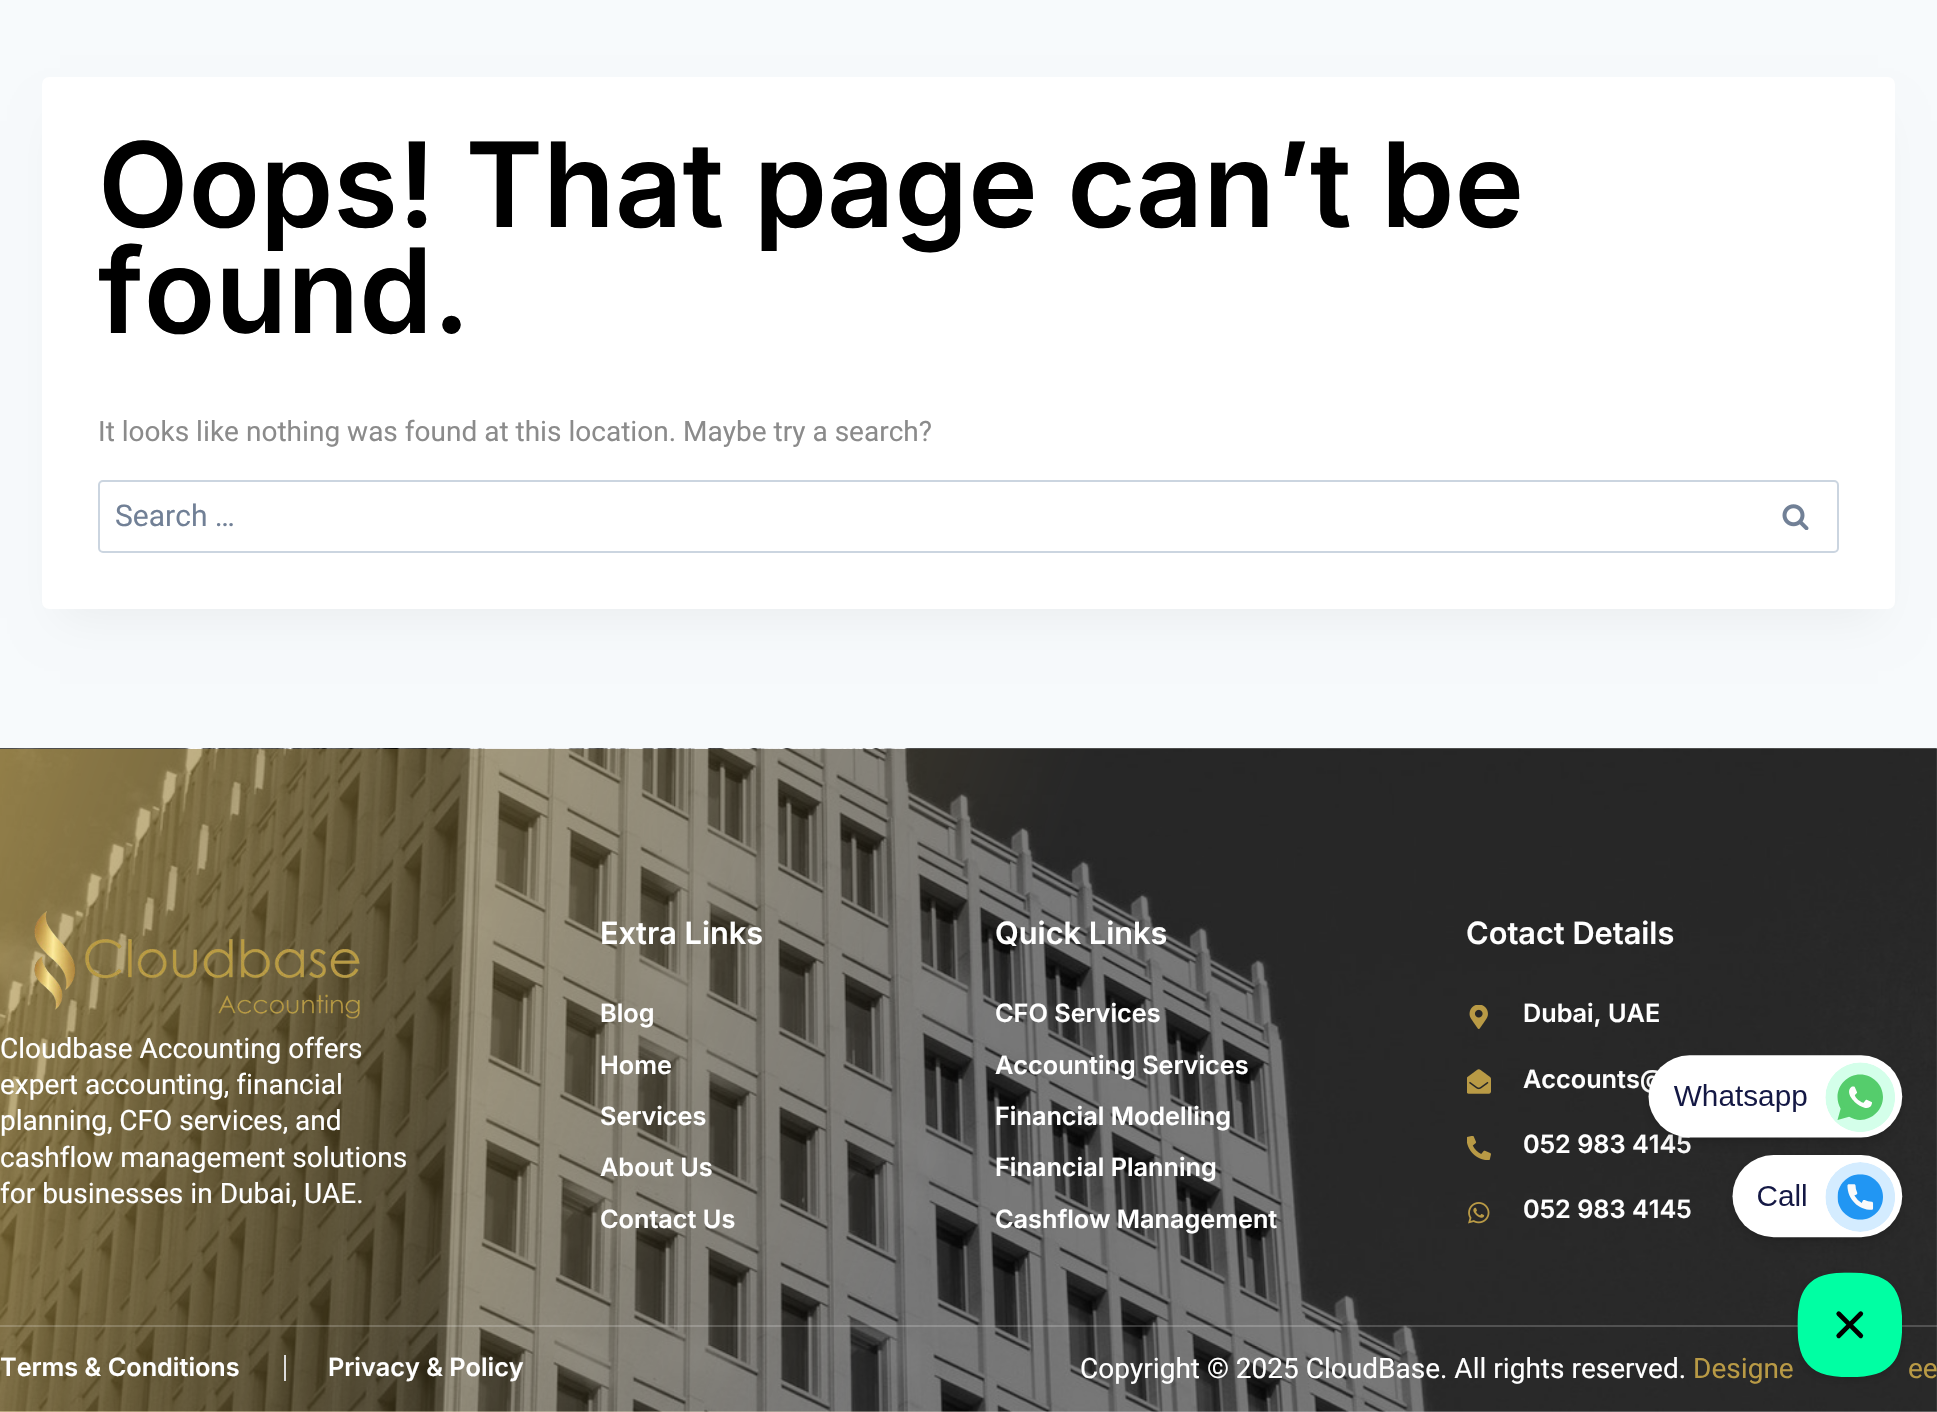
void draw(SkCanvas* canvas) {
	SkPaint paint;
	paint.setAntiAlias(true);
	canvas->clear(0xfff7fafc);
	paint.setColor(0x0d000000);
	paint.setMaskFilter(SkMaskFilter::MakeBlur(kNormal_SkBlurStyle, 22));
	canvas->drawRect(SkRect::MakeXYWH(60, 121, 1818, 497), paint);
	paint.setMaskFilter(nullptr);
	paint.setColor(0xffffffff);
	canvas->drawRoundRect(SkRect::MakeXYWH(42, 77, 1853, 532), 7, 7, paint);
	SkFont f1(fontMgr->matchFamilyStyle("Inter", SkFontStyle(600, SkFontStyle::kNormal_Width, SkFontStyle::kUpright_Slant)), 117.6);
	f1.setSubpixel(true);
	paint.setColor(0xff000000);
	canvas->drawString("Oops! That page can’t be", 98, 227, f1, paint);
	canvas->drawString("found.", 98, 333, f1, paint);
	SkFont f2(fontMgr->matchFamilyStyle("Heebo", SkFontStyle::Normal()), 28);
	f2.setSubpixel(true);
	paint.setColor(0xff8b8b8b);
	canvas->drawString("It looks like nothing was found at this location. Maybe try a search?", 98, 441, f2, paint);
	paint.setStroke(true);
	paint.setStrokeWidth(2);
	paint.setColor(0xffcbd5e0);
	canvas->drawRoundRect(SkRect::MakeXYWH(99, 481, 1739, 71), 4, 4, paint);
	SkFont f3(fontMgr->matchFamilyStyle("Roboto", SkFontStyle::Normal()), 30);
	f3.setSubpixel(true);
	paint.setStroke(false);
	paint.setColor(0xff718096);
	canvas->drawString("Search …", 115, 526, f3, paint);
	canvas->drawImageRect(SkImages::DeferredFromEncodedData(SkData::MakeFromFileName("img1.png")), SkRect::MakeXYWH(1782, 504, 27, 26), SkSamplingOptions());
	canvas->drawImageRect(SkImages::DeferredFromEncodedData(SkData::MakeFromFileName("img2.png")), SkRect::MakeXYWH(0, 748, 1937, 664), SkSamplingOptions());
	paint.setColor(0x30ffffff);
	canvas->drawRect(SkRect::MakeXYWH(0, 1411, 1937, 1), paint);
	{
		const SkColor colors[] = {0x82000000, 0xa3b99a45};
		const float stops[] = {0.5, 1};
		const SkPoint ends[] = {{1930, 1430}, {7, 730}};
		paint.setShader(SkGradientShader::MakeLinear(ends, colors, stops, 2, SkTileMode::kClamp));
		paint.setAlpha(255);
	}
	canvas->drawRect(SkRect::MakeXYWH(0, 749, 1937, 662), paint);
	{
		const SkColor colors[] = {0x82000000, 0xa3b99a45};
		const float stops[] = {0.5, 1};
		const SkPoint ends[] = {{1930, 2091}, {7, 1391}};
		paint.setShader(SkGradientShader::MakeLinear(ends, colors, stops, 2, SkTileMode::kClamp));
		paint.setAlpha(255);
	}
	canvas->drawRect(SkRect::MakeXYWH(0, 1411, 1937, 1), paint);
	paint.setShader(nullptr);
	paint.setColor(0x30ffffff);
	canvas->drawRect(SkRect::MakeXYWH(0, 1411, 1937, 1), paint);
	canvas->drawRect(SkRect::MakeXYWH(0, 1325, 1937, 2), paint);
	canvas->drawImageRect(SkImages::DeferredFromEncodedData(SkData::MakeFromFileName("img3.png")), SkRect::MakeXYWH(34, 911, 326, 108), SkSamplingOptions());
	paint.setColor(0xffffffff);
	canvas->drawString("Cloudbase Accounting offers", 0, 1058, f2, paint);
	canvas->drawString("expert accounting, financial", 0, 1094, f2, paint);
	canvas->drawString("planning, CFO services, and", 0, 1130, f2, paint);
	canvas->drawString("cashflow management solutions", 0, 1167, f2, paint);
	canvas->drawString("for businesses in Dubai, UAE.", 0, 1203, f2, paint);
	SkFont f4(fontMgr->matchFamilyStyle("Inter", SkFontStyle(600, SkFontStyle::kNormal_Width, SkFontStyle::kUpright_Slant)), 30.75);
	f4.setSubpixel(true);
	canvas->drawString("Extra Links", 600, 944, f4, paint);
	SkFont f5(fontMgr->matchFamilyStyle("Inter", SkFontStyle(600, SkFontStyle::kNormal_Width, SkFontStyle::kUpright_Slant)), 25.25);
	f5.setSubpixel(true);
	canvas->drawString("Blog", 600, 1022, f5, paint);
	canvas->drawString("Home", 600, 1074, f5, paint);
	canvas->drawString("Services", 600, 1125, f5, paint);
	canvas->drawString("About Us", 600, 1176, f5, paint);
	canvas->drawString("Contact Us", 600, 1228, f5, paint);
	canvas->drawString("Quick Links", 995, 944, f4, paint);
	canvas->drawString("CFO Services", 995, 1022, f5, paint);
	canvas->drawString("Accounting Services", 995, 1074, f5, paint);
	canvas->drawString("Financial Modelling", 995, 1125, f5, paint);
	canvas->drawString("Financial Planning", 995, 1176, f5, paint);
	canvas->drawString("Cashflow Management", 995, 1228, f5, paint);
	canvas->drawString("Cotact Details", 1466, 944, f4, paint);
	canvas->drawImageRect(SkImages::DeferredFromEncodedData(SkData::MakeFromFileName("img4.png")), SkRect::MakeXYWH(1469, 1005, 19, 24), SkSamplingOptions());
	canvas->drawString("Dubai, UAE", 1523, 1022, f5, paint);
	canvas->drawImageRect(SkImages::DeferredFromEncodedData(SkData::MakeFromFileName("img5.png")), SkRect::MakeXYWH(1467, 1069, 24, 25), SkSamplingOptions());
	canvas->drawString("Accounts@", 1523, 1088, f5, paint);
	canvas->drawImageRect(SkImages::DeferredFromEncodedData(SkData::MakeFromFileName("img6.png")), SkRect::MakeXYWH(1467, 1136, 24, 24), SkSamplingOptions());
	canvas->drawString("052 983 4145", 1523, 1153, f5, paint);
	canvas->drawImageRect(SkImages::DeferredFromEncodedData(SkData::MakeFromFileName("img7.png")), SkRect::MakeXYWH(1468, 1202, 22, 22), SkSamplingOptions());
	canvas->drawString("052 983 4145", 1523, 1218, f5, paint);
	canvas->drawString("Terms & Conditions", 0, 1376, f5, paint);
	paint.setColor(0xffdddddd);
	canvas->drawRect(SkRect::MakeXYWH(284, 1355, 2, 26), paint);
	paint.setColor(0xffffffff);
	canvas->drawString("Privacy & Policy", 328, 1376, f5, paint);
	canvas->drawString("Copyright © 2025 CloudBase. All rights reserved.", 1080, 1378, f2, paint);
	paint.setColor(0xffb99a45);
	canvas->drawString("Designe", 1693, 1378, f2, paint);
	canvas->drawString("ee", 1908, 1378, f2, paint);
	canvas->drawImageRect(SkImages::DeferredFromEncodedData(SkData::MakeFromFileName("img8.png")), SkRect::MakeXYWH(1643, 1055, 262, 329), SkSamplingOptions());
}
